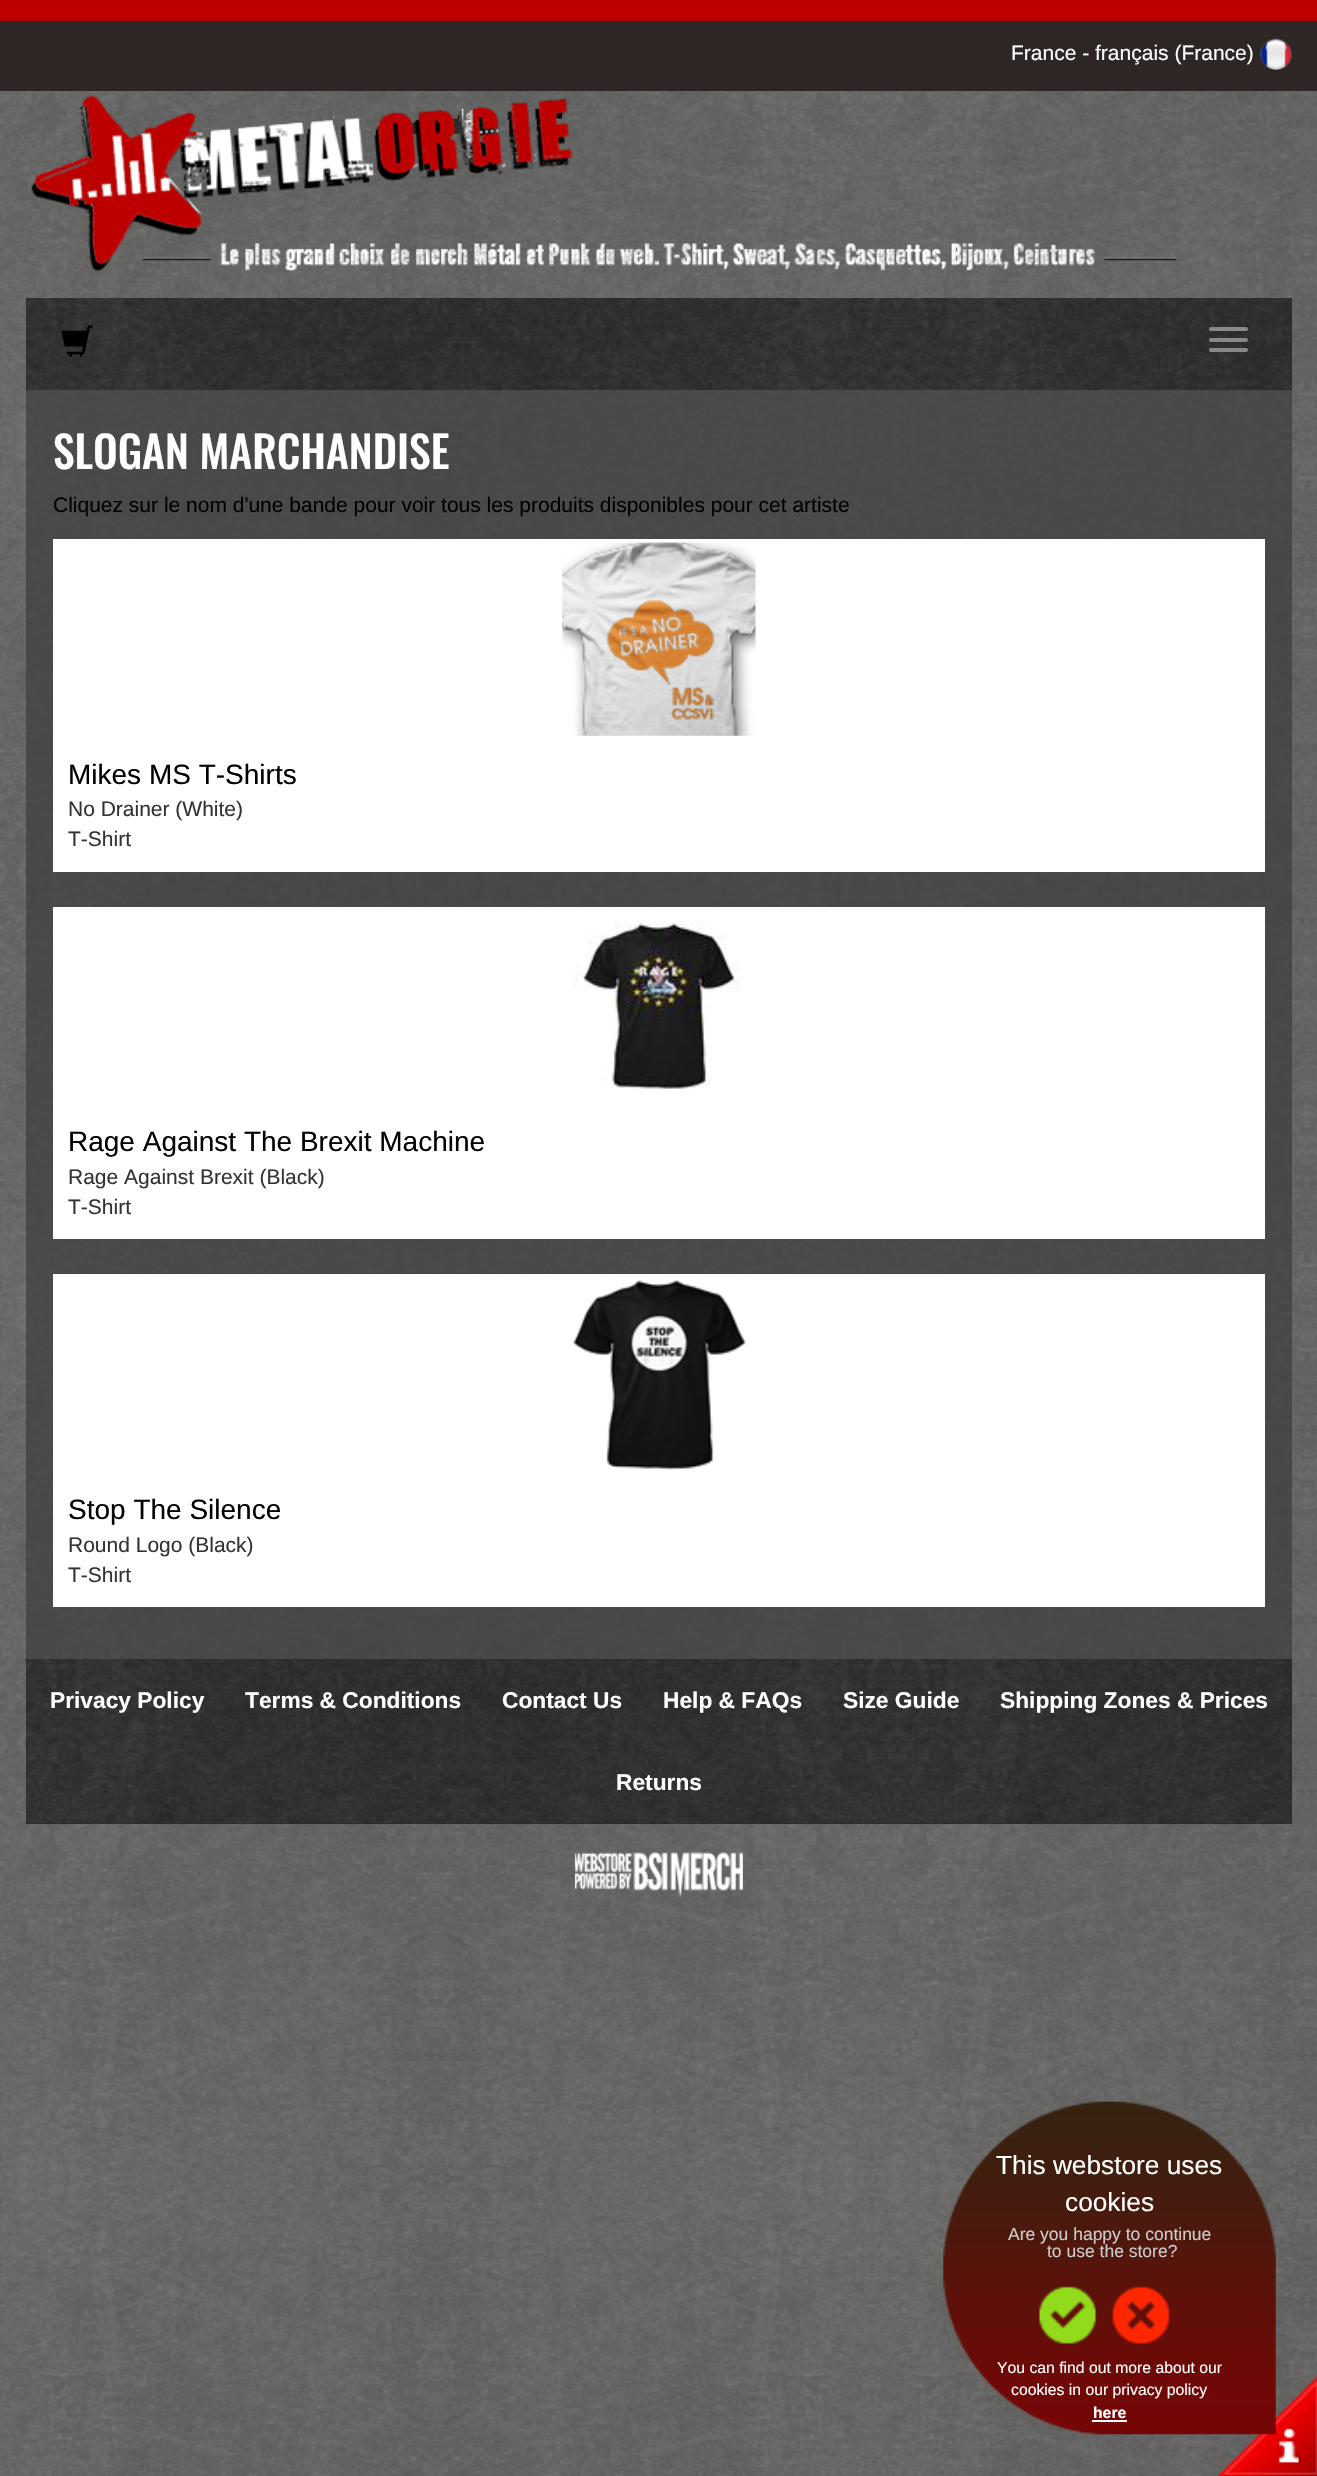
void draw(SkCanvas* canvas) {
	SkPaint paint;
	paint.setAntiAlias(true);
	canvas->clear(0xff666666);
	canvas->drawImageRect(SkImages::DeferredFromEncodedData(SkData::MakeFromFileName("img1.png")), SkRect::MakeXYWH(0, 0, 1317, 2476), SkSamplingOptions());
	SkFont f1(fontMgr->matchFamilyStyle("Liberation Sans", SkFontStyle::Normal()), 21);
	f1.setSubpixel(true);
	paint.setColor(0xffffffff);
	canvas->drawString("France - français (France)", 1011, 60, f1, paint);
	canvas->drawImageRect(SkImages::DeferredFromEncodedData(SkData::MakeFromFileName("img2.png")), SkRect::MakeXYWH(1260, 38, 32, 32), SkSamplingOptions());
	canvas->drawImageRect(SkImages::DeferredFromEncodedData(SkData::MakeFromFileName("img3.png")), SkRect::MakeXYWH(31, 95, 1146, 176), SkSamplingOptions());
	paint.setColor(0xff262626);
	canvas->drawRect(SkRect::MakeXYWH(26, 298, 1266, 92), paint);
	canvas->drawImageRect(SkImages::DeferredFromEncodedData(SkData::MakeFromFileName("img4.png")), SkRect::MakeXYWH(26, 297, 1266, 93), SkSamplingOptions());
	canvas->drawImageRect(SkImages::DeferredFromEncodedData(SkData::MakeFromFileName("img5.png")), SkRect::MakeXYWH(61, 325, 32, 32), SkSamplingOptions());
	paint.setColor(0xff888888);
	canvas->drawRoundRect(SkRect::MakeXYWH(1209, 327, 39, 4), 2, 2, paint);
	canvas->drawRoundRect(SkRect::MakeXYWH(1209, 338, 39, 4), 2, 2, paint);
	canvas->drawRoundRect(SkRect::MakeXYWH(1209, 348, 39, 4), 2, 2, paint);
	paint.setColor(0xb33c3c3c);
	canvas->drawRect(SkRect::MakeXYWH(26, 390, 1266, 1269), paint);
	SkFont f2(fontMgr->matchFamilyStyle("Oswald", SkFontStyle(500, SkFontStyle::kNormal_Width, SkFontStyle::kUpright_Slant)), 43.75);
	f2.setSubpixel(true);
	paint.setColor(0xffffffff);
	canvas->drawString("SLOGAN MARCHANDISE", 53, 469, f2, paint);
	paint.setColor(0xff000000);
	canvas->drawString("Cliquez sur le nom d'une bande pour voir tous les produits disponibles pour cet artiste", 53, 512, f1, paint);
	paint.setColor(0xffffffff);
	canvas->drawRect(SkRect::MakeXYWH(53, 539, 1212, 333), paint);
	canvas->drawImageRect(SkImages::DeferredFromEncodedData(SkData::MakeFromFileName("img6.png")), SkRect::MakeXYWH(562, 542, 194, 194), SkSamplingOptions());
	SkFont f3(fontMgr->matchFamilyStyle("Liberation Sans", SkFontStyle::Normal()), 28);
	f3.setSubpixel(true);
	paint.setColor(0xff000000);
	canvas->drawString("Mikes MS T-Shirts", 68, 784, f3, paint);
	paint.setColor(0xff333333);
	canvas->drawString("No Drainer (White)", 68, 816, f1, paint);
	canvas->drawString("T-Shirt", 68, 846, f1, paint);
	paint.setColor(0xffffffff);
	canvas->drawRect(SkRect::MakeXYWH(53, 907, 1212, 332), paint);
	canvas->drawImageRect(SkImages::DeferredFromEncodedData(SkData::MakeFromFileName("img7.png")), SkRect::MakeXYWH(574, 920, 166, 169), SkSamplingOptions());
	paint.setColor(0xff000000);
	canvas->drawString("Rage Against The Brexit Machine", 68, 1151, f3, paint);
	paint.setColor(0xff333333);
	canvas->drawString("Rage Against Brexit (Black)", 68, 1184, f1, paint);
	canvas->drawString("T-Shirt", 68, 1214, f1, paint);
	paint.setColor(0xffffffff);
	canvas->drawRect(SkRect::MakeXYWH(53, 1274, 1212, 333), paint);
	canvas->drawImageRect(SkImages::DeferredFromEncodedData(SkData::MakeFromFileName("img8.png")), SkRect::MakeXYWH(573, 1280, 173, 191), SkSamplingOptions());
	paint.setColor(0xff000000);
	canvas->drawString("Stop The Silence", 68, 1519, f3, paint);
	paint.setColor(0xff333333);
	canvas->drawString("Round Logo (Black)", 68, 1552, f1, paint);
	canvas->drawString("T-Shirt", 68, 1582, f1, paint);
	paint.setColor(0xff262626);
	canvas->drawRect(SkRect::MakeXYWH(26, 1659, 1266, 165), paint);
	canvas->drawImageRect(SkImages::DeferredFromEncodedData(SkData::MakeFromFileName("img9.png")), SkRect::MakeXYWH(26, 1659, 1266, 165), SkSamplingOptions());
	SkFont f4(fontMgr->matchFamilyStyle("Liberation Sans", SkFontStyle::Bold()), 22.75);
	f4.setSubpixel(true);
	paint.setColor(0xffffffff);
	canvas->drawString("Privacy Policy", 50, 1708, f4, paint);
	canvas->drawString("Terms & Conditions", 245, 1708, f4, paint);
	canvas->drawString("Contact Us", 502, 1708, f4, paint);
	canvas->drawString("Help & FAQs", 663, 1708, f4, paint);
	canvas->drawString("Size Guide", 843, 1708, f4, paint);
	canvas->drawString("Shipping Zones & Prices", 1000, 1708, f4, paint);
	canvas->drawString("Returns", 616, 1790, f4, paint);
	canvas->drawImageRect(SkImages::DeferredFromEncodedData(SkData::MakeFromFileName("img10.png")), SkRect::MakeXYWH(574, 1852, 169, 46), SkSamplingOptions());
	canvas->drawImageRect(SkImages::DeferredFromEncodedData(SkData::MakeFromFileName("img14.png")), SkRect::MakeXYWH(1217, 2376, 100, 100), SkSamplingOptions());
	canvas->drawImageRect(SkImages::DeferredFromEncodedData(SkData::MakeFromFileName("img11.png")), SkRect::MakeXYWH(943, 2101, 333, 334), SkSamplingOptions());
	SkFont f5(fontMgr->matchFamilyStyle("Liberation Sans", SkFontStyle::Normal()), 26.25);
	f5.setSubpixel(true);
	canvas->drawString("This webstore uses", 996, 2174, f5, paint);
	canvas->drawString("cookies", 1065, 2211, f5, paint);
	SkFont f6(fontMgr->matchFamilyStyle("Liberation Sans", SkFontStyle::Normal()), 17.5);
	f6.setSubpixel(true);
	paint.setColor(0xffcccccc);
	canvas->drawString("Are you happy to continue", 1008, 2240, f6, paint);
	canvas->drawString("to use the store?", 1047, 2257, f6, paint);
	canvas->drawImageRect(SkImages::DeferredFromEncodedData(SkData::MakeFromFileName("img12.png")), SkRect::MakeXYWH(1039, 2286, 57, 58), SkSamplingOptions());
	canvas->drawImageRect(SkImages::DeferredFromEncodedData(SkData::MakeFromFileName("img13.png")), SkRect::MakeXYWH(1112, 2286, 58, 58), SkSamplingOptions());
	SkFont f7(fontMgr->matchFamilyStyle("Liberation Sans", SkFontStyle::Normal()), 15.75);
	f7.setSubpixel(true);
	paint.setColor(0xffffffff);
	canvas->drawString("You can find out more about our", 997, 2373, f7, paint);
	canvas->drawString("cookies in our privacy policy", 1011, 2395, f7, paint);
	SkFont f8(fontMgr->matchFamilyStyle("Liberation Sans", SkFontStyle::Bold()), 15.75);
	f8.setSubpixel(true);
	canvas->drawString("here", 1093, 2418, f8, paint);
	canvas->drawRect(SkRect::MakeXYWH(1092, 2420, 35, 2), paint);
}
